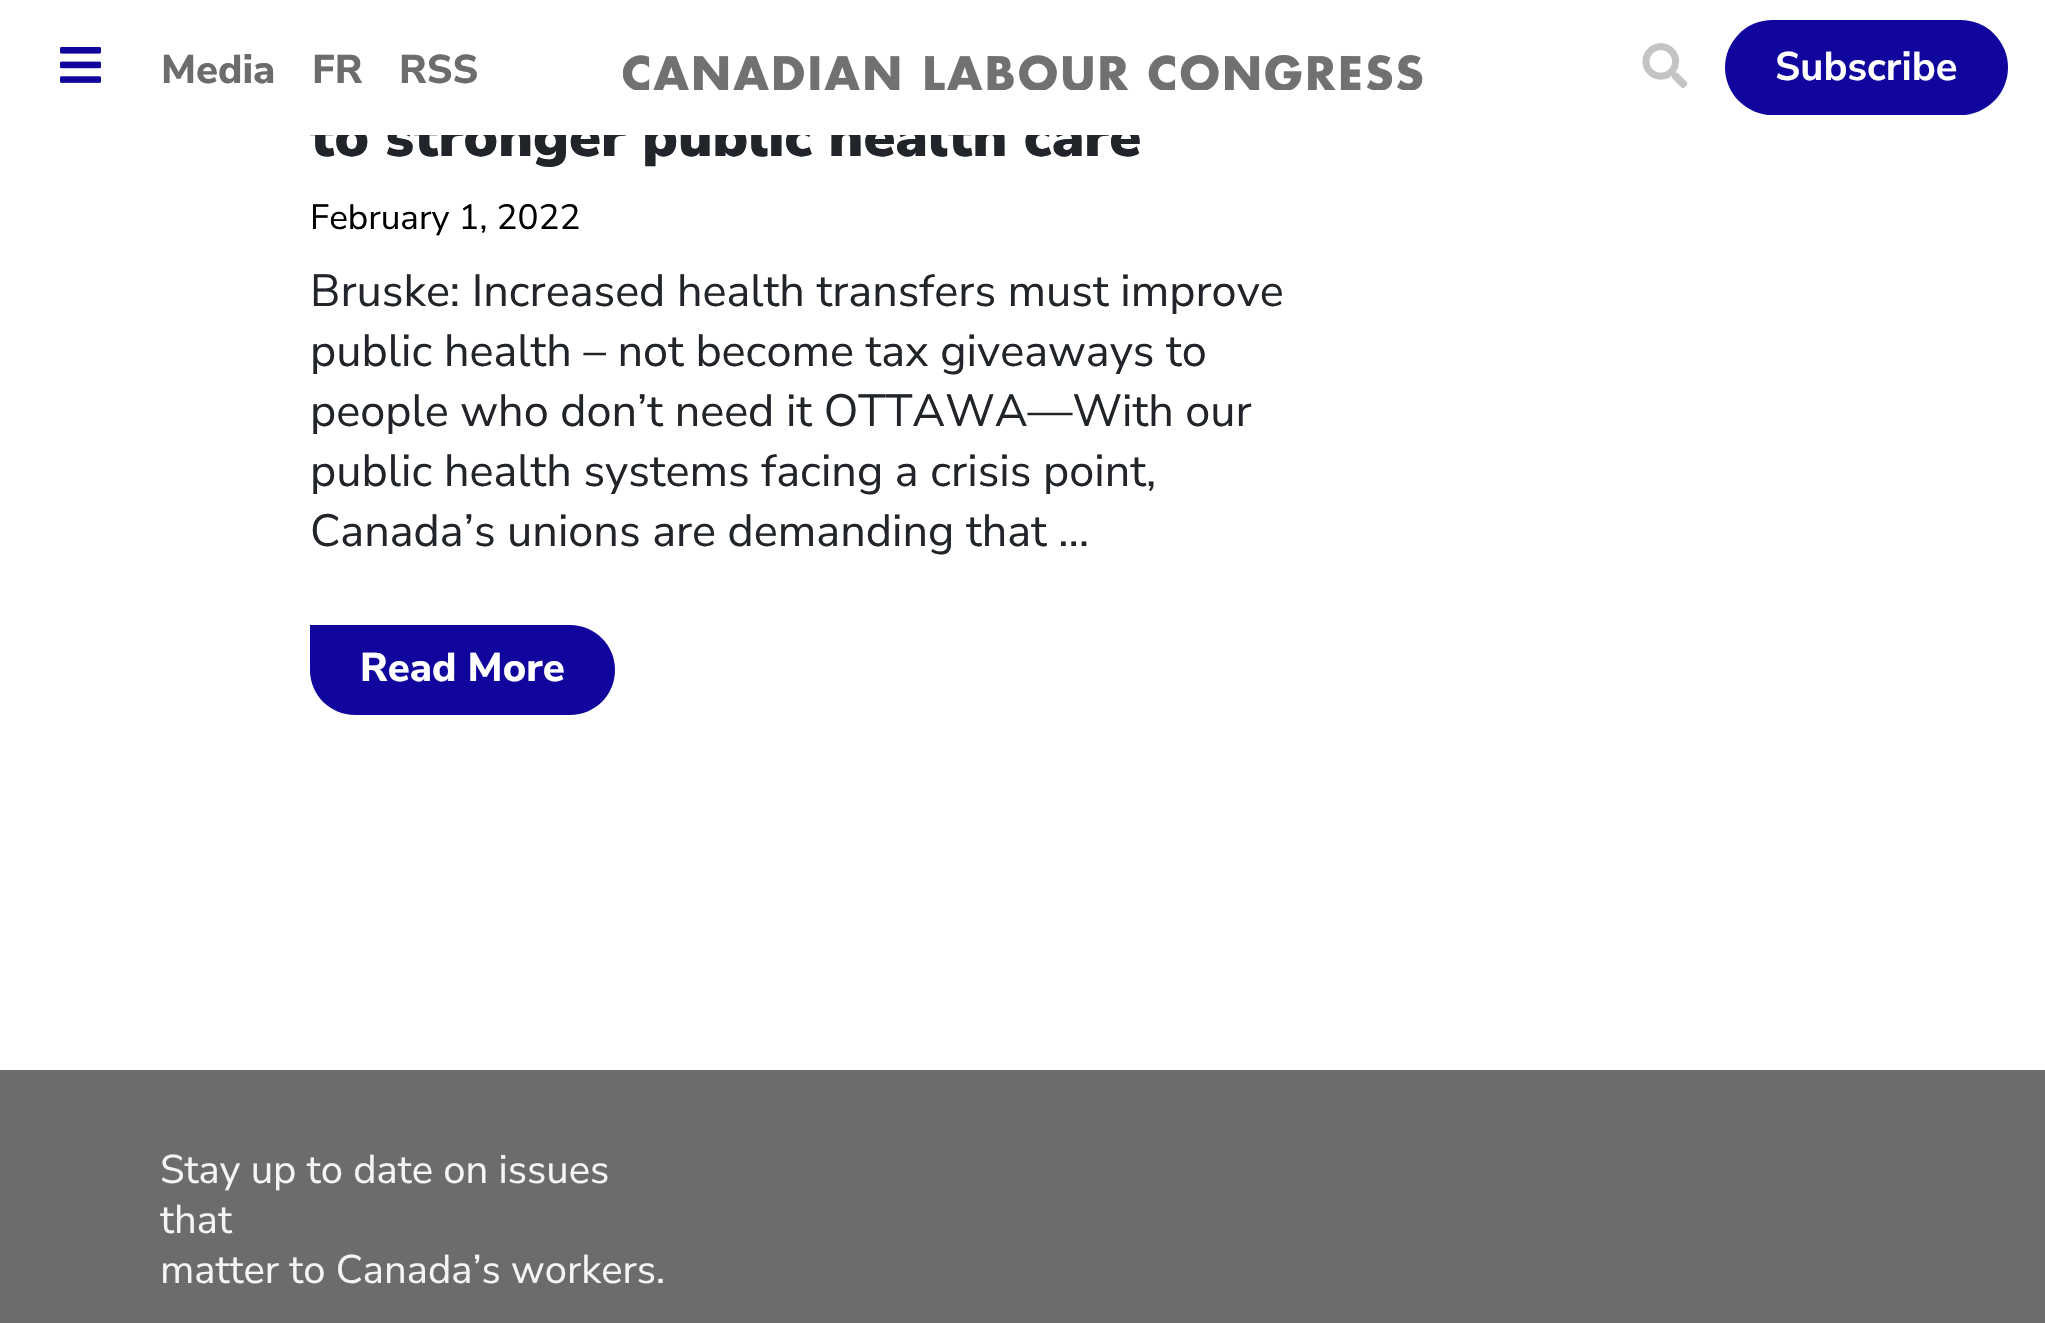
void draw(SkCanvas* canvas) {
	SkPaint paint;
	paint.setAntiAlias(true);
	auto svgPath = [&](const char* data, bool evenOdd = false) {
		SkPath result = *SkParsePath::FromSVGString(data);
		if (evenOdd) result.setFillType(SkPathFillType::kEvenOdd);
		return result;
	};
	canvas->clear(0xffffffff);
	SkFont f1(fontMgr->matchFamilyStyle("Nunito Sans", SkFontStyle(900, SkFontStyle::kNormal_Width, SkFontStyle::kUpright_Slant)), 57.5);
	f1.setSubpixel(true);
	paint.setColor(0xff212529);
	canvas->drawString("to stronger public health care", 310, 156, f1, paint);
	paint.setColor(0xffffffff);
	canvas->drawRect(SkRect::MakeXYWH(309, 113, 830, 22), paint);
	canvas->drawImageRect(SkImages::DeferredFromEncodedData(SkData::MakeFromFileName("img1.png")), SkRect::MakeXYWH(60, 47, 41, 36), SkSamplingOptions());
	SkFont f2(fontMgr->matchFamilyStyle("Nunito Sans", SkFontStyle(800, SkFontStyle::kNormal_Width, SkFontStyle::kUpright_Slant)), 40);
	f2.setSubpixel(true);
	paint.setColor(0xff6c6c6c);
	canvas->drawString("Media", 161, 83, f2, paint);
	canvas->drawString("FR", 312, 83, f2, paint);
	canvas->drawString("RSS", 399, 83, f2, paint);
	canvas->drawImageRect(SkImages::DeferredFromEncodedData(SkData::MakeFromFileName("img2.png")), SkRect::MakeXYWH(623, 55, 800, 35), SkSamplingOptions());
	canvas->drawImageRect(SkImages::DeferredFromEncodedData(SkData::MakeFromFileName("img3.png")), SkRect::MakeXYWH(1642, 43, 46, 45), SkSamplingOptions());
	paint.setColor(0xff10069e);
	canvas->drawRoundRect(SkRect::MakeXYWH(1725, 20, 283, 95), 47.5, 47.5, paint);
	SkFont f3(fontMgr->matchFamilyStyle("Nunito Sans", SkFontStyle::Bold()), 40);
	f3.setSubpixel(true);
	paint.setColor(0xffffffff);
	canvas->drawString("Subscribe", 1775, 80, f3, paint);
	SkFont f4(fontMgr->matchFamilyStyle("Nunito Sans", SkFontStyle::Normal()), 35);
	f4.setSubpixel(true);
	paint.setColor(0xff000000);
	canvas->drawString("February 1, 2022", 310, 229, f4, paint);
	SkFont f5(fontMgr->matchFamilyStyle("Nunito Sans", SkFontStyle::Normal()), 45);
	f5.setSubpixel(true);
	paint.setColor(0xff212529);
	canvas->drawString("Bruske: Increased health transfers must improve", 310, 306, f5, paint);
	canvas->drawString("public health – not become tax giveaways to", 310, 366, f5, paint);
	canvas->drawString("people who don’t need it OTTAWA––With our", 310, 426, f5, paint);
	canvas->drawString("public health systems facing a crisis point,", 310, 486, f5, paint);
	canvas->drawString("Canada’s unions are demanding that …", 310, 546, f5, paint);
	paint.setColor(0xff10069e);
	canvas->drawPath(svgPath("M310 625H570C595 625 615 645 615 670C615 695 595 715 570 715H355C330 715 310 695 310 670Z"), paint);
	paint.setColor(0xffffffff);
	canvas->drawString("Read More", 360, 681, f2, paint);
	paint.setColor(0xff6c6c6c);
	canvas->drawRect(SkRect::MakeXYWH(0, 1070, 2045, 253), paint);
	SkFont f6(fontMgr->matchFamilyStyle("Nunito Sans", SkFontStyle::Normal()), 40);
	f6.setSubpixel(true);
	paint.setColor(0xfff5f5f5);
	canvas->drawString("Stay up to date on issues", 160, 1183, f6, paint);
	canvas->drawString("that", 160, 1233, f6, paint);
	canvas->drawString("matter to Canada’s workers.", 160, 1283, f6, paint);
}
